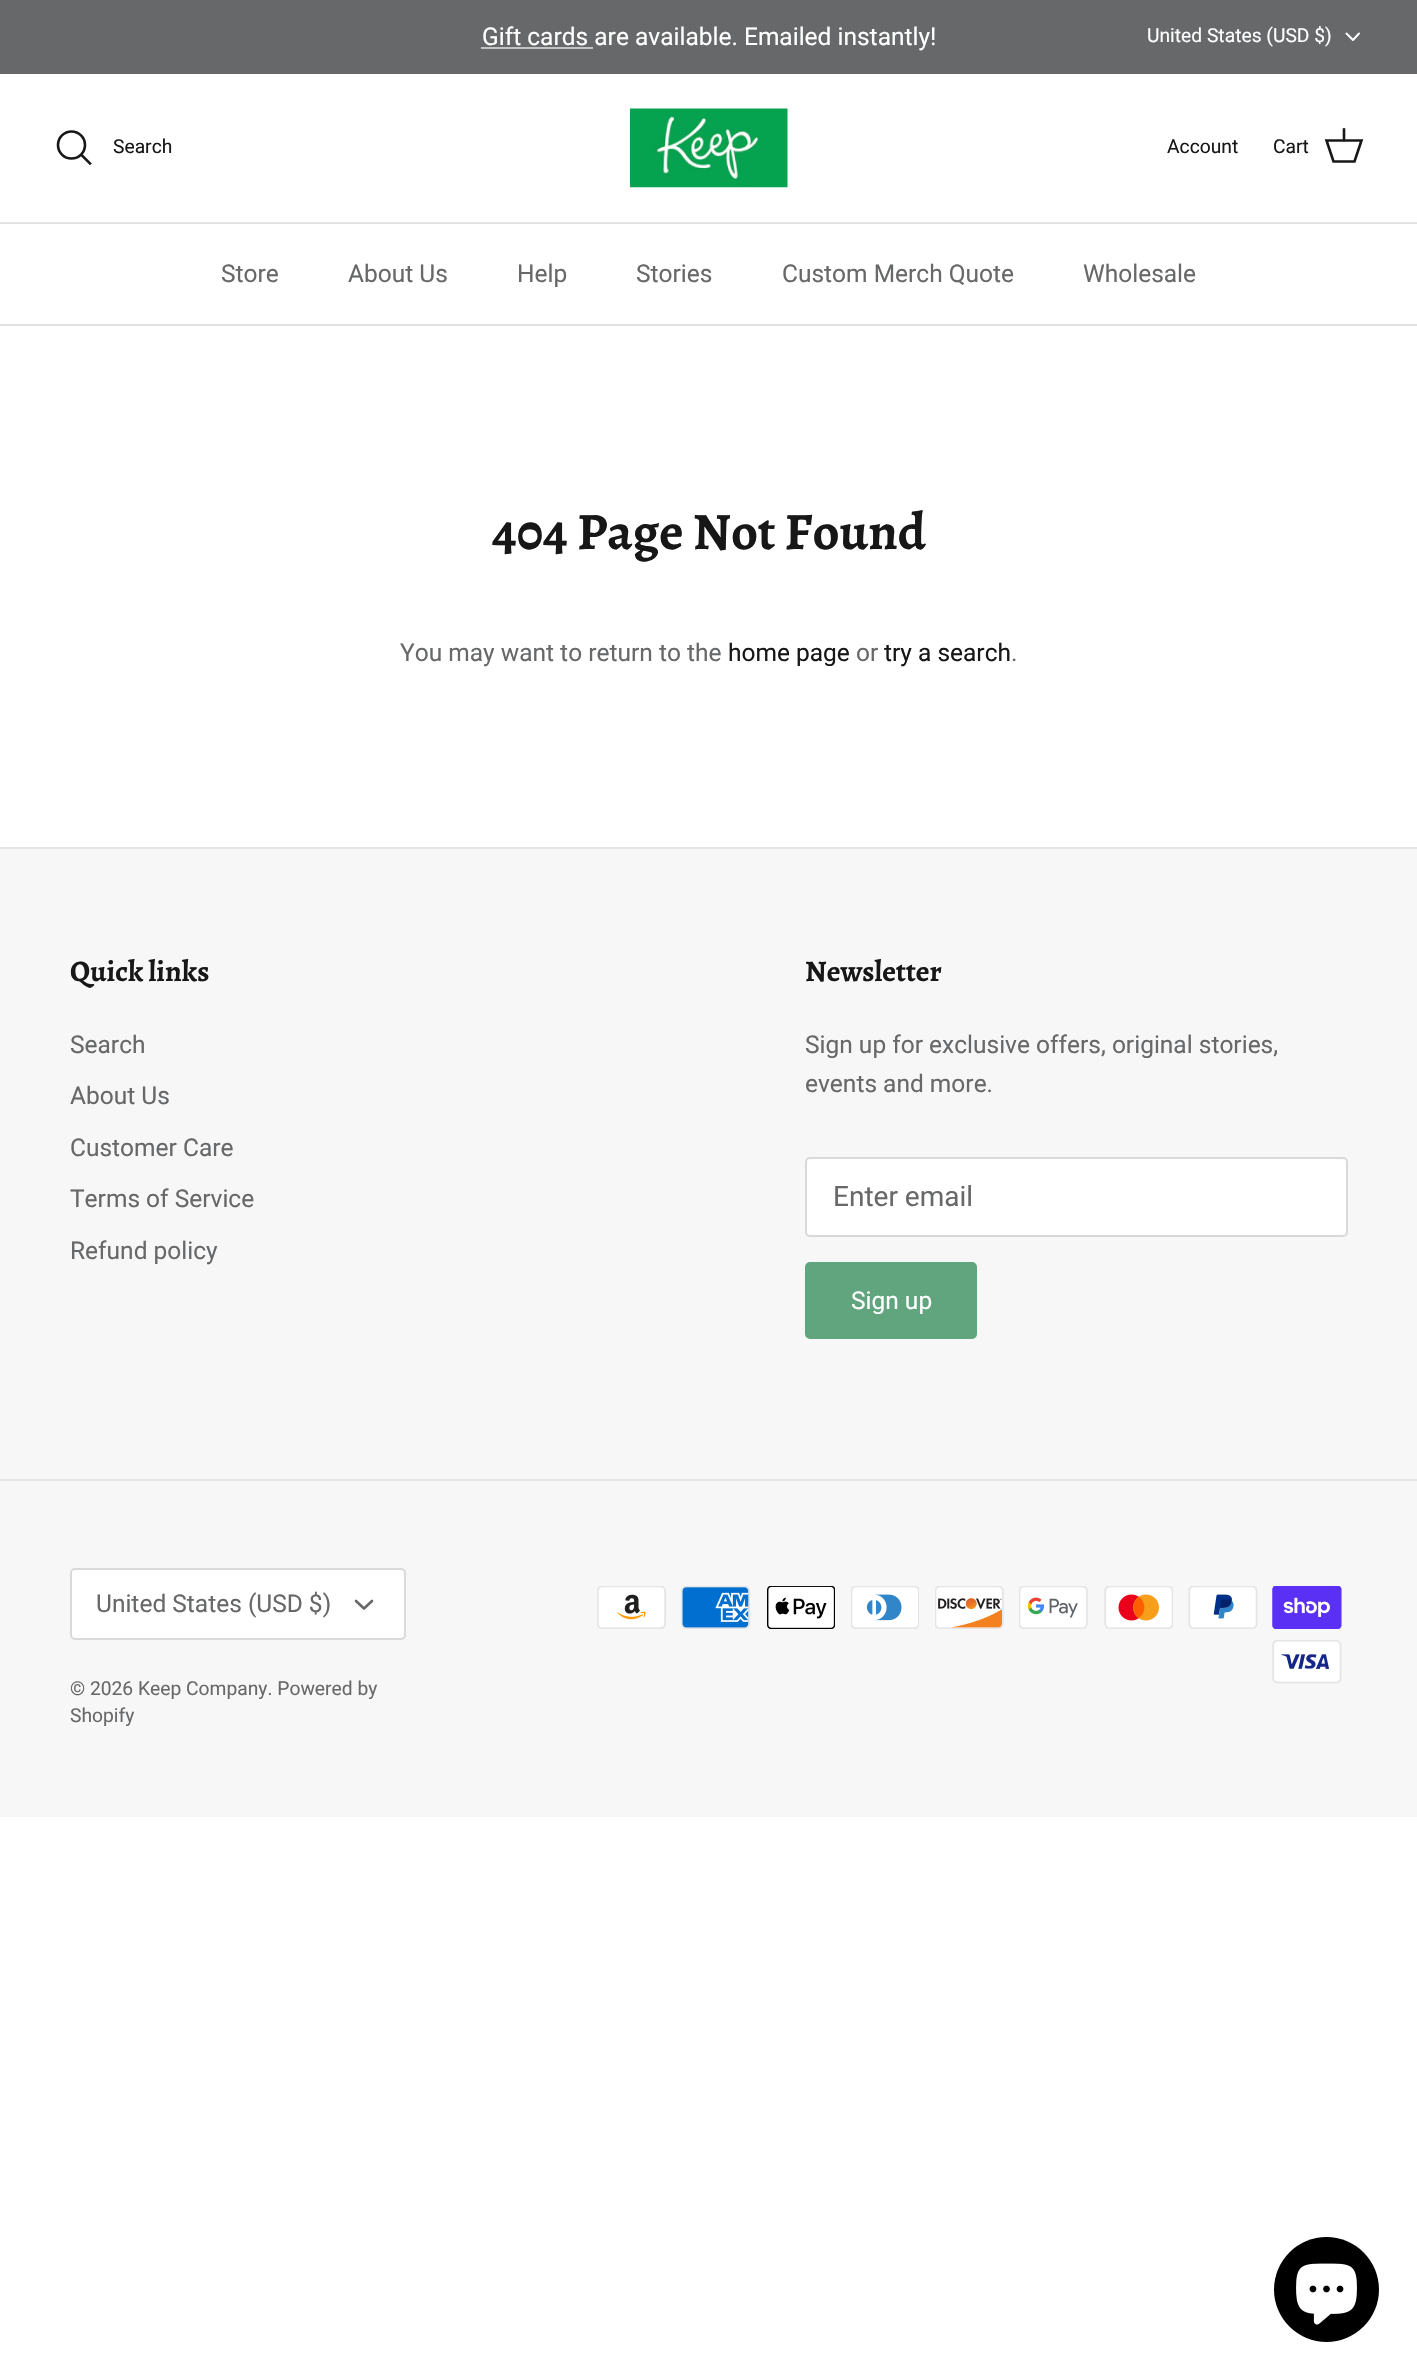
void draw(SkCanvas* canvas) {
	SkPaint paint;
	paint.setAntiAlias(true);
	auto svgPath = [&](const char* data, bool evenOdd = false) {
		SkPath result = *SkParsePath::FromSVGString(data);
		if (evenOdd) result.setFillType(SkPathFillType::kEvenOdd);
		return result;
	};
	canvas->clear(0xffffffff);
	paint.setColor(0xff676869);
	canvas->drawRect(SkRect::MakeXYWH(0, 0, 1417, 74), paint);
	paint.setColor(0xffc2c3c3);
	canvas->drawRect(SkRect::MakeXYWH(481, 47, 112, 2), paint);
	SkFont f1(fontMgr->matchFamilyStyle("Roboto", SkFontStyle::Normal()), 24.5);
	f1.setSubpixel(true);
	paint.setColor(0xffffffff);
	canvas->drawString("Gift cards are available. Emailed instantly!", 482, 45, f1, paint);
	SkFont f2(fontMgr->matchFamilyStyle("Roboto", SkFontStyle::Normal()), 19.25);
	f2.setSubpixel(true);
	canvas->drawString("United States (USD $)", 1147, 42, f2, paint);
	paint.setStroke(true);
	paint.setStrokeWidth(2);
	paint.setStrokeCap(SkPaint::kRound_Cap);
	paint.setStrokeJoin(SkPaint::kRound_Join);
	canvas->drawPath(svgPath("M1346.5 33.5L1353 40L1359 33.5"), paint);
	paint.setStroke(false);
	paint.setColor(0xffe2e2e2);
	canvas->drawRect(SkRect::MakeXYWH(0, 222, 1417, 2), paint);
	paint.setStroke(true);
	paint.setStrokeWidth(2.6);
	paint.setStrokeCap(SkPaint::kButt_Cap);
	paint.setStrokeJoin(SkPaint::kMiter_Join);
	paint.setColor(0xff171717);
	canvas->drawCircle(71.5, 145, 13.5, paint);
	paint.setStroke(false);
	canvas->drawString("Search", 113, 153, f2, paint);
	paint.setStroke(true);
	paint.setStrokeCap(SkPaint::kSquare_Cap);
	canvas->drawPath(svgPath("M82 155.5L90 163.5"), paint);
	canvas->drawImageRect(SkImages::DeferredFromEncodedData(SkData::MakeFromFileName("img1.png")), SkRect::MakeXYWH(630, 108, 158, 80), SkSamplingOptions());
	paint.setStroke(false);
	canvas->drawString("Account", 1167, 153, f2, paint);
	canvas->drawString("Cart", 1273, 153, f2, paint);
	paint.setStroke(true);
	paint.setStrokeCap(SkPaint::kButt_Cap);
	canvas->drawPath(svgPath("M1326.5 140.5H1361.5L1354.5 161.5H1333.5Z"), paint);
	paint.setStrokeCap(SkPaint::kSquare_Cap);
	canvas->drawPath(svgPath("M1344 140V129.5"), paint);
	paint.setStroke(false);
	paint.setColor(0xffe2e2e2);
	canvas->drawRect(SkRect::MakeXYWH(0, 324, 1417, 2), paint);
	paint.setColor(0xff676869);
	canvas->drawString("Store", 221, 282, f1, paint);
	canvas->drawString("About Us", 348, 282, f1, paint);
	canvas->drawString("Help", 517, 282, f1, paint);
	canvas->drawString("Stories", 636, 282, f1, paint);
	canvas->drawString("Custom Merch Quote", 782, 282, f1, paint);
	canvas->drawString("Wholesale", 1083, 282, f1, paint);
	SkFont f3(fontMgr->matchFamilyStyle("Alegreya", SkFontStyle::Bold()), 52.5);
	f3.setSubpixel(true);
	paint.setColor(0xff171717);
	canvas->drawString("404 Page Not Found", 492, 549, f3, paint);
	paint.setColor(0xff676869);
	canvas->drawString("You may want to return to the", 400, 661, f1, paint);
	paint.setColor(0xff171717);
	canvas->drawString("home page", 728, 661, f1, paint);
	paint.setColor(0xff676869);
	canvas->drawString("or", 856, 661, f1, paint);
	paint.setColor(0xff171717);
	canvas->drawString("try a search", 884, 661, f1, paint);
	paint.setColor(0xff676869);
	canvas->drawString(".", 1011, 661, f1, paint);
	paint.setColor(0xfff7f7f8);
	canvas->drawRect(SkRect::MakeXYWH(0, 849, 1417, 968), paint);
	paint.setColor(0xffe4e4e4);
	canvas->drawRect(SkRect::MakeXYWH(0, 847, 1417, 2), paint);
	SkFont f4(fontMgr->matchFamilyStyle("Alegreya", SkFontStyle::Bold()), 29.75);
	f4.setSubpixel(true);
	paint.setColor(0xff171717);
	canvas->drawString("Quick links", 70, 981, f4, paint);
	paint.setColor(0xff676869);
	canvas->drawString("Search", 70, 1053, f1, paint);
	canvas->drawString("About Us", 70, 1104, f1, paint);
	canvas->drawString("Customer Care", 70, 1156, f1, paint);
	canvas->drawString("Terms of Service", 70, 1207, f1, paint);
	canvas->drawString("Refund policy", 70, 1259, f1, paint);
	paint.setColor(0xff171717);
	canvas->drawString("Newsletter", 805, 981, f4, paint);
	paint.setColor(0xff676869);
	canvas->drawString("Sign up for exclusive offers, original stories,", 805, 1053, f1, paint);
	canvas->drawString("events and more.", 805, 1092, f1, paint);
	paint.setColor(0xffffffff);
	canvas->drawRoundRect(SkRect::MakeXYWH(806, 1158, 541, 78), 4, 4, paint);
	paint.setStroke(true);
	paint.setStrokeWidth(2);
	paint.setStrokeCap(SkPaint::kButt_Cap);
	paint.setColor(0xffd9d9da);
	canvas->drawRoundRect(SkRect::MakeXYWH(806, 1158, 541, 78), 4, 4, paint);
	SkFont f5(fontMgr->matchFamilyStyle("Roboto", SkFontStyle::Normal()), 28);
	f5.setSubpixel(true);
	paint.setStroke(false);
	paint.setColor(0xff676869);
	canvas->drawString("Enter email", 833, 1206, f5, paint);
	paint.setColor(0xff60a57e);
	canvas->drawRoundRect(SkRect::MakeXYWH(806, 1263, 170, 75), 4, 4, paint);
	paint.setStroke(true);
	canvas->drawRoundRect(SkRect::MakeXYWH(806, 1263, 170, 75), 4, 4, paint);
	paint.setStroke(false);
	paint.setColor(0xffffffff);
	canvas->drawString("Sign up", 851, 1309, f1, paint);
	paint.setColor(0xffe4e4e4);
	canvas->drawRect(SkRect::MakeXYWH(0, 1479, 1417, 2), paint);
	paint.setColor(0xffffffff);
	canvas->drawRoundRect(SkRect::MakeXYWH(71, 1569, 334, 70), 4, 4, paint);
	paint.setStroke(true);
	paint.setColor(0xffd9d9da);
	canvas->drawRoundRect(SkRect::MakeXYWH(71, 1569, 334, 70), 4, 4, paint);
	paint.setStroke(false);
	paint.setColor(0xff676869);
	canvas->drawString("United States (USD $)", 96, 1612, f1, paint);
	paint.setStroke(true);
	paint.setStrokeWidth(2.6);
	paint.setStrokeCap(SkPaint::kRound_Cap);
	paint.setStrokeJoin(SkPaint::kRound_Join);
	canvas->drawPath(svgPath("M356 1601L364 1608.5L372 1601"), paint);
	paint.setStroke(false);
	canvas->drawString("© 2026 Keep Company. Powered by", 70, 1695, f2, paint);
	canvas->drawString("Shopify", 70, 1722, f2, paint);
	canvas->drawImageRect(SkImages::DeferredFromEncodedData(SkData::MakeFromFileName("img2.png")), SkRect::MakeXYWH(597, 1586, 69, 43), SkSamplingOptions());
	canvas->drawImageRect(SkImages::DeferredFromEncodedData(SkData::MakeFromFileName("img3.png")), SkRect::MakeXYWH(681, 1586, 69, 43), SkSamplingOptions());
	canvas->drawImageRect(SkImages::DeferredFromEncodedData(SkData::MakeFromFileName("img4.png")), SkRect::MakeXYWH(767, 1586, 68, 43), SkSamplingOptions());
	canvas->drawImageRect(SkImages::DeferredFromEncodedData(SkData::MakeFromFileName("img5.png")), SkRect::MakeXYWH(851, 1586, 68, 43), SkSamplingOptions());
	canvas->drawImageRect(SkImages::DeferredFromEncodedData(SkData::MakeFromFileName("img6.png")), SkRect::MakeXYWH(935, 1586, 69, 43), SkSamplingOptions());
	canvas->drawImageRect(SkImages::DeferredFromEncodedData(SkData::MakeFromFileName("img7.png")), SkRect::MakeXYWH(1019, 1586, 69, 43), SkSamplingOptions());
	canvas->drawImageRect(SkImages::DeferredFromEncodedData(SkData::MakeFromFileName("img8.png")), SkRect::MakeXYWH(1104, 1586, 69, 43), SkSamplingOptions());
	canvas->drawImageRect(SkImages::DeferredFromEncodedData(SkData::MakeFromFileName("img9.png")), SkRect::MakeXYWH(1188, 1586, 70, 43), SkSamplingOptions());
	canvas->drawImageRect(SkImages::DeferredFromEncodedData(SkData::MakeFromFileName("img10.png")), SkRect::MakeXYWH(1272, 1586, 70, 43), SkSamplingOptions());
	canvas->drawImageRect(SkImages::DeferredFromEncodedData(SkData::MakeFromFileName("img11.png")), SkRect::MakeXYWH(1272, 1640, 70, 44), SkSamplingOptions());
	paint.setColor(0xff000000);
	canvas->drawCircle(1326.5, 2289.5, 52.5, paint);
	canvas->drawImageRect(SkImages::DeferredFromEncodedData(SkData::MakeFromFileName("img12.png")), SkRect::MakeXYWH(1296, 2263, 61, 62), SkSamplingOptions());
}
